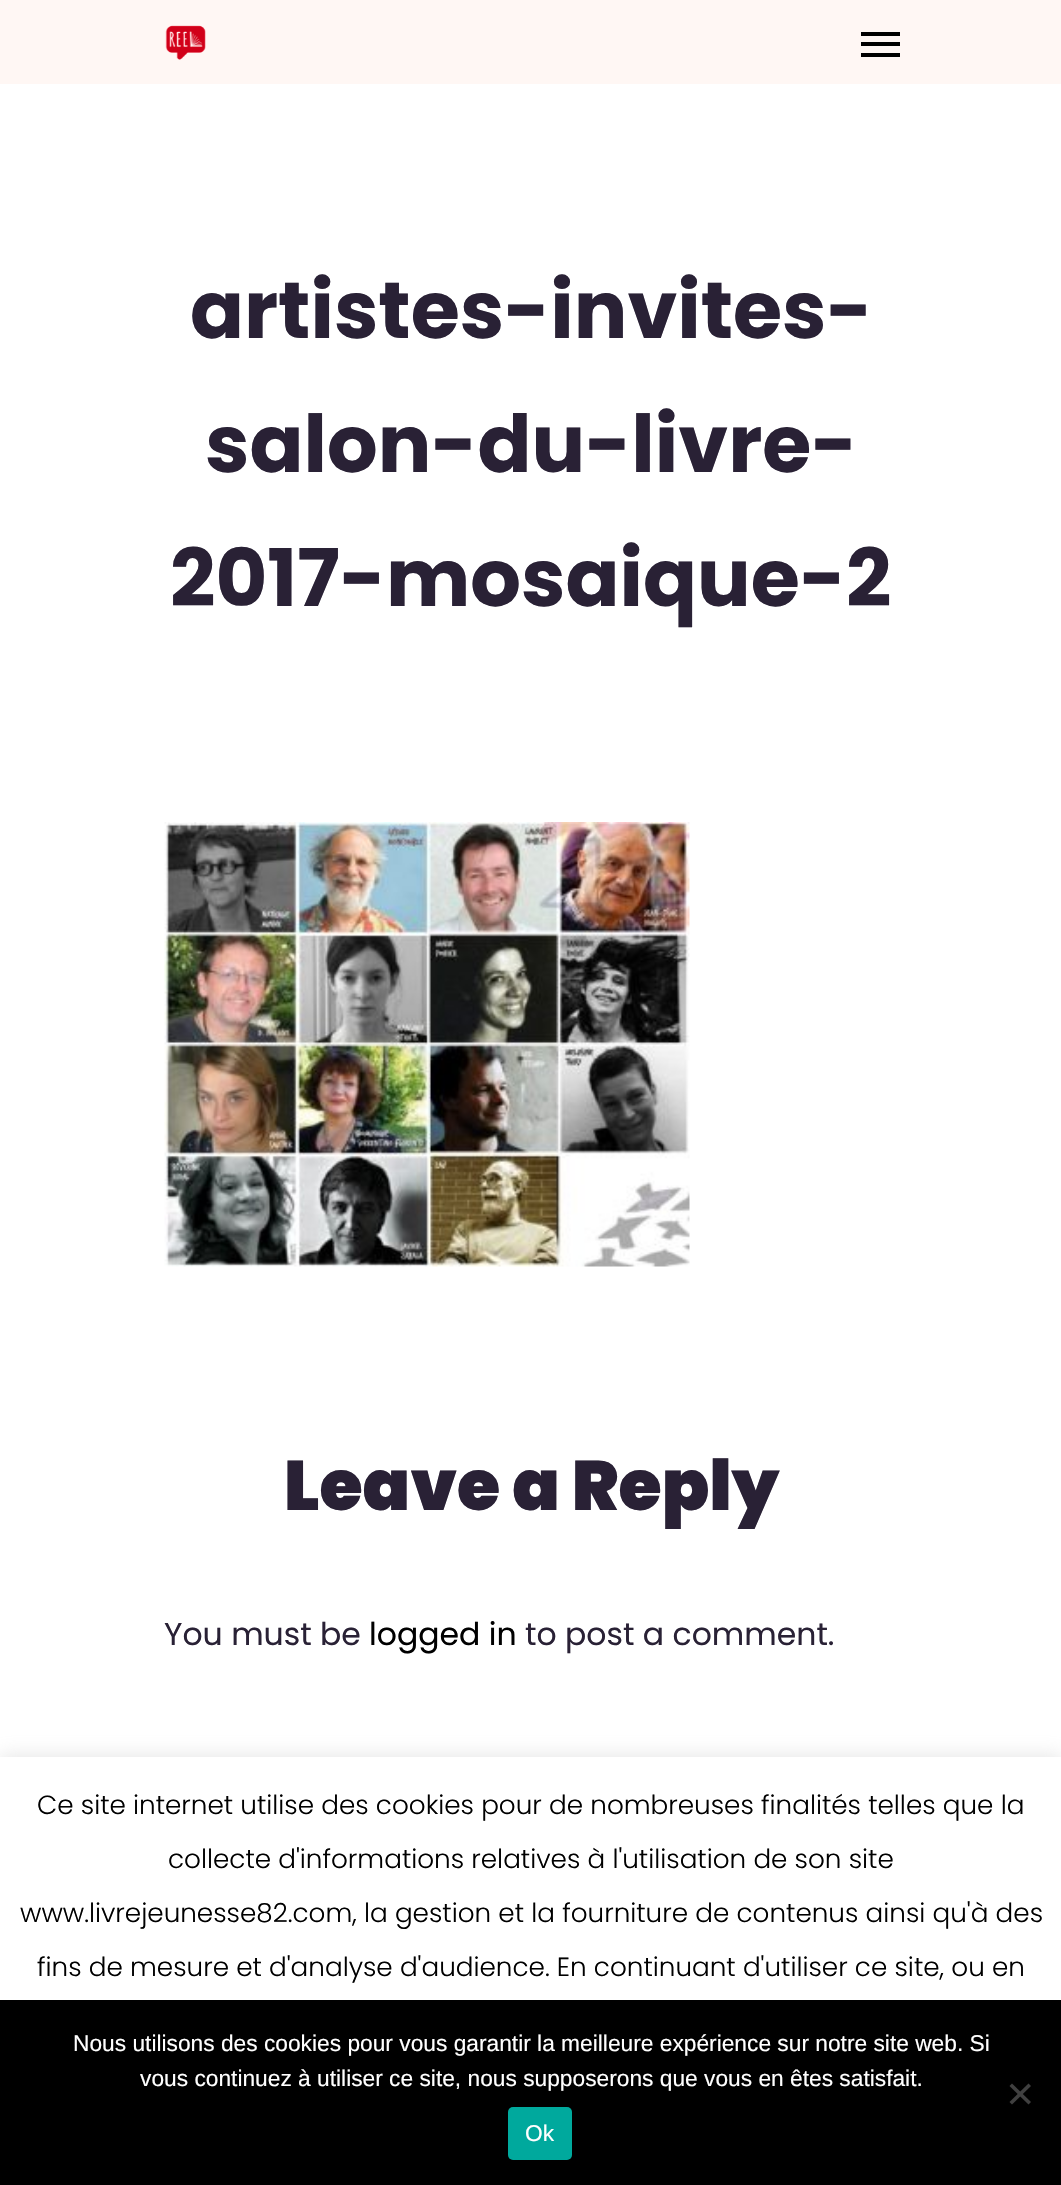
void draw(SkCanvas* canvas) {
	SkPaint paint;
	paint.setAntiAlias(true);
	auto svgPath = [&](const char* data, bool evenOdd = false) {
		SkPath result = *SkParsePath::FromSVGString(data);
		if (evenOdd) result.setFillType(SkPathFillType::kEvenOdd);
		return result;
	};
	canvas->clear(0xffffffff);
	paint.setColor(0xfffff7f4);
	canvas->drawRect(SkRect::MakeXYWH(0, 0, 1061, 84), paint);
	canvas->drawImageRect(SkImages::DeferredFromEncodedData(SkData::MakeFromFileName("img1.png")), SkRect::MakeXYWH(165, 25, 41, 35), SkSamplingOptions());
	paint.setColor(0xff000000);
	canvas->drawRect(SkRect::MakeXYWH(861, 32, 39, 4), paint);
	canvas->drawRect(SkRect::MakeXYWH(861, 53, 39, 4), paint);
	canvas->drawRect(SkRect::MakeXYWH(861, 42, 39, 4), paint);
	SkFont f1(fontMgr->matchFamilyStyle("Poppins", SkFontStyle::Bold()), 79.6);
	f1.setSubpixel(true);
	paint.setColor(0xff292135);
	canvas->drawString("artistes-invites-", 190, 338, f1, paint);
	canvas->drawString("salon-du-livre-", 205, 472, f1, paint);
	canvas->drawString("2017-mosaique-2", 170, 606, f1, paint);
	canvas->drawImageRect(SkImages::DeferredFromEncodedData(SkData::MakeFromFileName("img2.png")), SkRect::MakeXYWH(164, 822, 526, 445), SkSamplingOptions());
	SkFont f2(fontMgr->matchFamilyStyle("Poppins", SkFontStyle(900, SkFontStyle::kNormal_Width, SkFontStyle::kUpright_Slant)), 70);
	f2.setSubpixel(true);
	canvas->drawString("Leave a Reply", 284, 1510, f2, paint);
	SkFont f3(fontMgr->matchFamilyStyle("Poppins", SkFontStyle::Normal()), 31.5);
	f3.setSubpixel(true);
	canvas->drawString("You must be", 164, 1645, f3, paint);
	paint.setColor(0xff000000);
	canvas->drawString("logged in", 369, 1645, f3, paint);
	paint.setColor(0xff292135);
	canvas->drawString("to post a comment.", 525, 1645, f3, paint);
	paint.setColor(0x4dacabab);
	paint.setMaskFilter(SkMaskFilter::MakeBlur(kNormal_SkBlurStyle, 9));
	canvas->drawRect(SkRect::MakeXYWH(0, 1755, 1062, 429), paint);
	paint.setMaskFilter(nullptr);
	paint.setColor(0xffffffff);
	canvas->drawRect(SkRect::MakeXYWH(0, 1757, 1061, 243), paint);
	SkFont f4(fontMgr->matchFamilyStyle("Poppins", SkFontStyle(300, SkFontStyle::kNormal_Width, SkFontStyle::kUpright_Slant)), 26.25);
	f4.setSubpixel(true);
	paint.setColor(0xff000000);
	canvas->drawString("Ce site internet utilise des cookies pour de nombreuses finalités telles que la", 37, 1814, f4, paint);
	canvas->drawString("collecte d'informations relatives à l'utilisation de son site", 168, 1868, f4, paint);
	canvas->drawString("www.livrejeunesse82.com, la gestion et la fourniture de contenus ainsi qu'à des", 20, 1922, f4, paint);
	canvas->drawString("fins de mesure et d'analyse d'audience. En continuant d'utiliser ce site, ou en", 37, 1976, f4, paint);
	canvas->drawRect(SkRect::MakeXYWH(0, 2000, 1061, 185), paint);
	SkFont f5(fontMgr->matchFamilyStyle("Liberation Sans", SkFontStyle::Normal()), 22.75);
	f5.setSubpixel(true);
	paint.setColor(0xffffffff);
	canvas->drawString("Nous utilisons des cookies pour vous garantir la meilleure expérience sur notre site web. Si", 73, 2051, f5, paint);
	canvas->drawString("vous continuez à utiliser ce site, nous supposerons que vous en êtes satisfait.", 140, 2086, f5, paint);
	paint.setColor(0xff404040);
	canvas->drawPath(svgPath("M1028.5 2083.5L1031 2086L1012 2104.5L1009.5 2102Z"), paint);
	canvas->drawPath(svgPath("M1009.5 2086L1012 2083.5L1031 2102L1028.5 2104.5Z"), paint);
	paint.setColor(0xff00a99d);
	canvas->drawRoundRect(SkRect::MakeXYWH(508, 2107, 64, 53), 5, 5, paint);
	paint.setColor(0xffffffff);
	canvas->drawString("Ok", 525, 2141, f5, paint);
}
